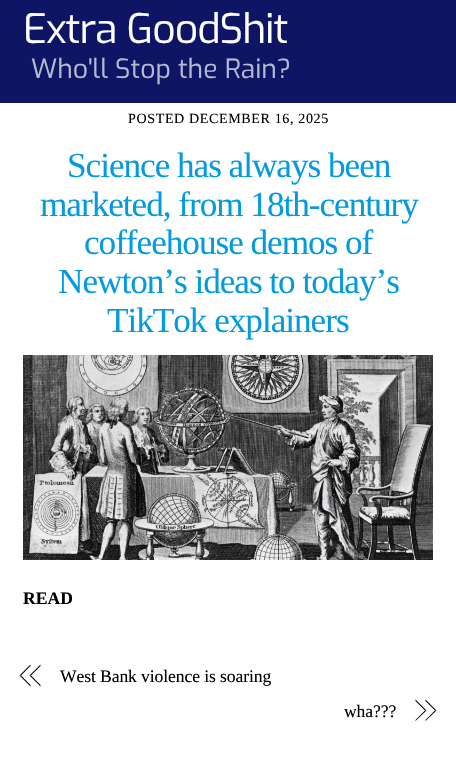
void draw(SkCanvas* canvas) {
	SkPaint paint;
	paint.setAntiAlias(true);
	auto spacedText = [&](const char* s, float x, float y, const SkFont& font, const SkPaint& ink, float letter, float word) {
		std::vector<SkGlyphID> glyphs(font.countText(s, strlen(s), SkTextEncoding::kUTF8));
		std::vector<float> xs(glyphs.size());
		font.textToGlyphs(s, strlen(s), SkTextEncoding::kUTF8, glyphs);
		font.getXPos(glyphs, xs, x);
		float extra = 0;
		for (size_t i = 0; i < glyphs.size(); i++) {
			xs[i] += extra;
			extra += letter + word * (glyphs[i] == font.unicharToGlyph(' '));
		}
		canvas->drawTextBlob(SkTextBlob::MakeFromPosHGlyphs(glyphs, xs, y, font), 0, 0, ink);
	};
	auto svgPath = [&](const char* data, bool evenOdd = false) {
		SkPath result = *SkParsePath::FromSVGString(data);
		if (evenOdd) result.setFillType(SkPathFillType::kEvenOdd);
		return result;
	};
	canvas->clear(0xffffffff);
	paint.setColor(0xff0e1565);
	canvas->drawRect(SkRect::MakeXYWH(0, 0, 456, 102), paint);
	paint.setColor(0xff0d1460);
	canvas->drawRect(SkRect::MakeXYWH(0, 102, 456, 1), paint);
	SkFont f1(fontMgr->matchFamilyStyle("Exo", SkFontStyle::Normal()), 40.75);
	f1.setSubpixel(true);
	paint.setColor(0xffffffff);
	spacedText("Extra GoodShit", 23, 43, f1, paint, -1, 0);
	SkFont f2(fontMgr->matchFamilyStyle("Exo", SkFontStyle::Normal()), 26.5);
	f2.setSubpixel(true);
	paint.setColor(0xffb7b9d1);
	canvas->drawString("Who'll Stop the Rain?", 31, 78, f2, paint);
	SkFont f3(fontMgr->matchFamilyStyle("Liberation Serif", SkFontStyle::Normal()), 14.1);
	f3.setSubpixel(true);
	paint.setColor(0xff000000);
	spacedText("POSTED DECEMBER 16, 2025", 128, 123, f3, paint, 0.6, 0);
	SkFont f4(fontMgr->matchFamilyStyle("Liberation Serif", SkFontStyle::Normal()), 35.25);
	f4.setSubpixel(true);
	paint.setColor(0xff039ae0);
	spacedText("Science has always been", 67, 177, f4, paint, -1.05, 0);
	spacedText("marketed, from 18th-century", 40, 216, f4, paint, -1.05, 0);
	spacedText("coffeehouse demos of", 84, 254, f4, paint, -1.05, 0);
	spacedText("Newton’s ideas to today’s", 58, 293, f4, paint, -1.05, 0);
	spacedText("TikTok explainers", 107, 332, f4, paint, -1.05, 0);
	canvas->drawImageRect(SkImages::DeferredFromEncodedData(SkData::MakeFromFileName("img1.png")), SkRect::MakeXYWH(23, 355, 410, 205), SkSamplingOptions());
	SkFont f5(fontMgr->matchFamilyStyle("Liberation Serif", SkFontStyle::Bold()), 17.6);
	f5.setSubpixel(true);
	paint.setColor(0xff000000);
	canvas->drawString("READ", 23, 604, f5, paint);
	canvas->drawPath(svgPath("M19.5 675.5L30.5 664.5V666L21 675.5Z"), paint);
	canvas->drawPath(svgPath("M30.5 686.5L19.5 675.5H21L30.5 685Z"), paint);
	canvas->drawPath(svgPath("M29.5 675.5L40.5 664.5V666L31 675.5Z"), paint);
	canvas->drawPath(svgPath("M40.5 686.5L29.5 675.5H31L40.5 685Z"), paint);
	SkFont f6(fontMgr->matchFamilyStyle("Liberation Serif", SkFontStyle::Normal()), 17.6);
	f6.setSubpixel(true);
	spacedText("West Bank violence is soaring", 60, 682, f6, paint, -0.1, 0);
	spacedText("wha?\077?", 344, 717, f6, paint, -0.1, 0);
	canvas->drawPath(svgPath("M425.5 699.5L436.5 710.5H435L425.5 701Z"), paint);
	canvas->drawPath(svgPath("M436.5 710.5L425.5 721V720L435 710.5Z"), paint);
	canvas->drawPath(svgPath("M415.5 699.5L426.5 710.5H425L415.5 701Z"), paint);
	canvas->drawPath(svgPath("M426.5 710.5L415.5 721V720L425 710.5Z"), paint);
}
